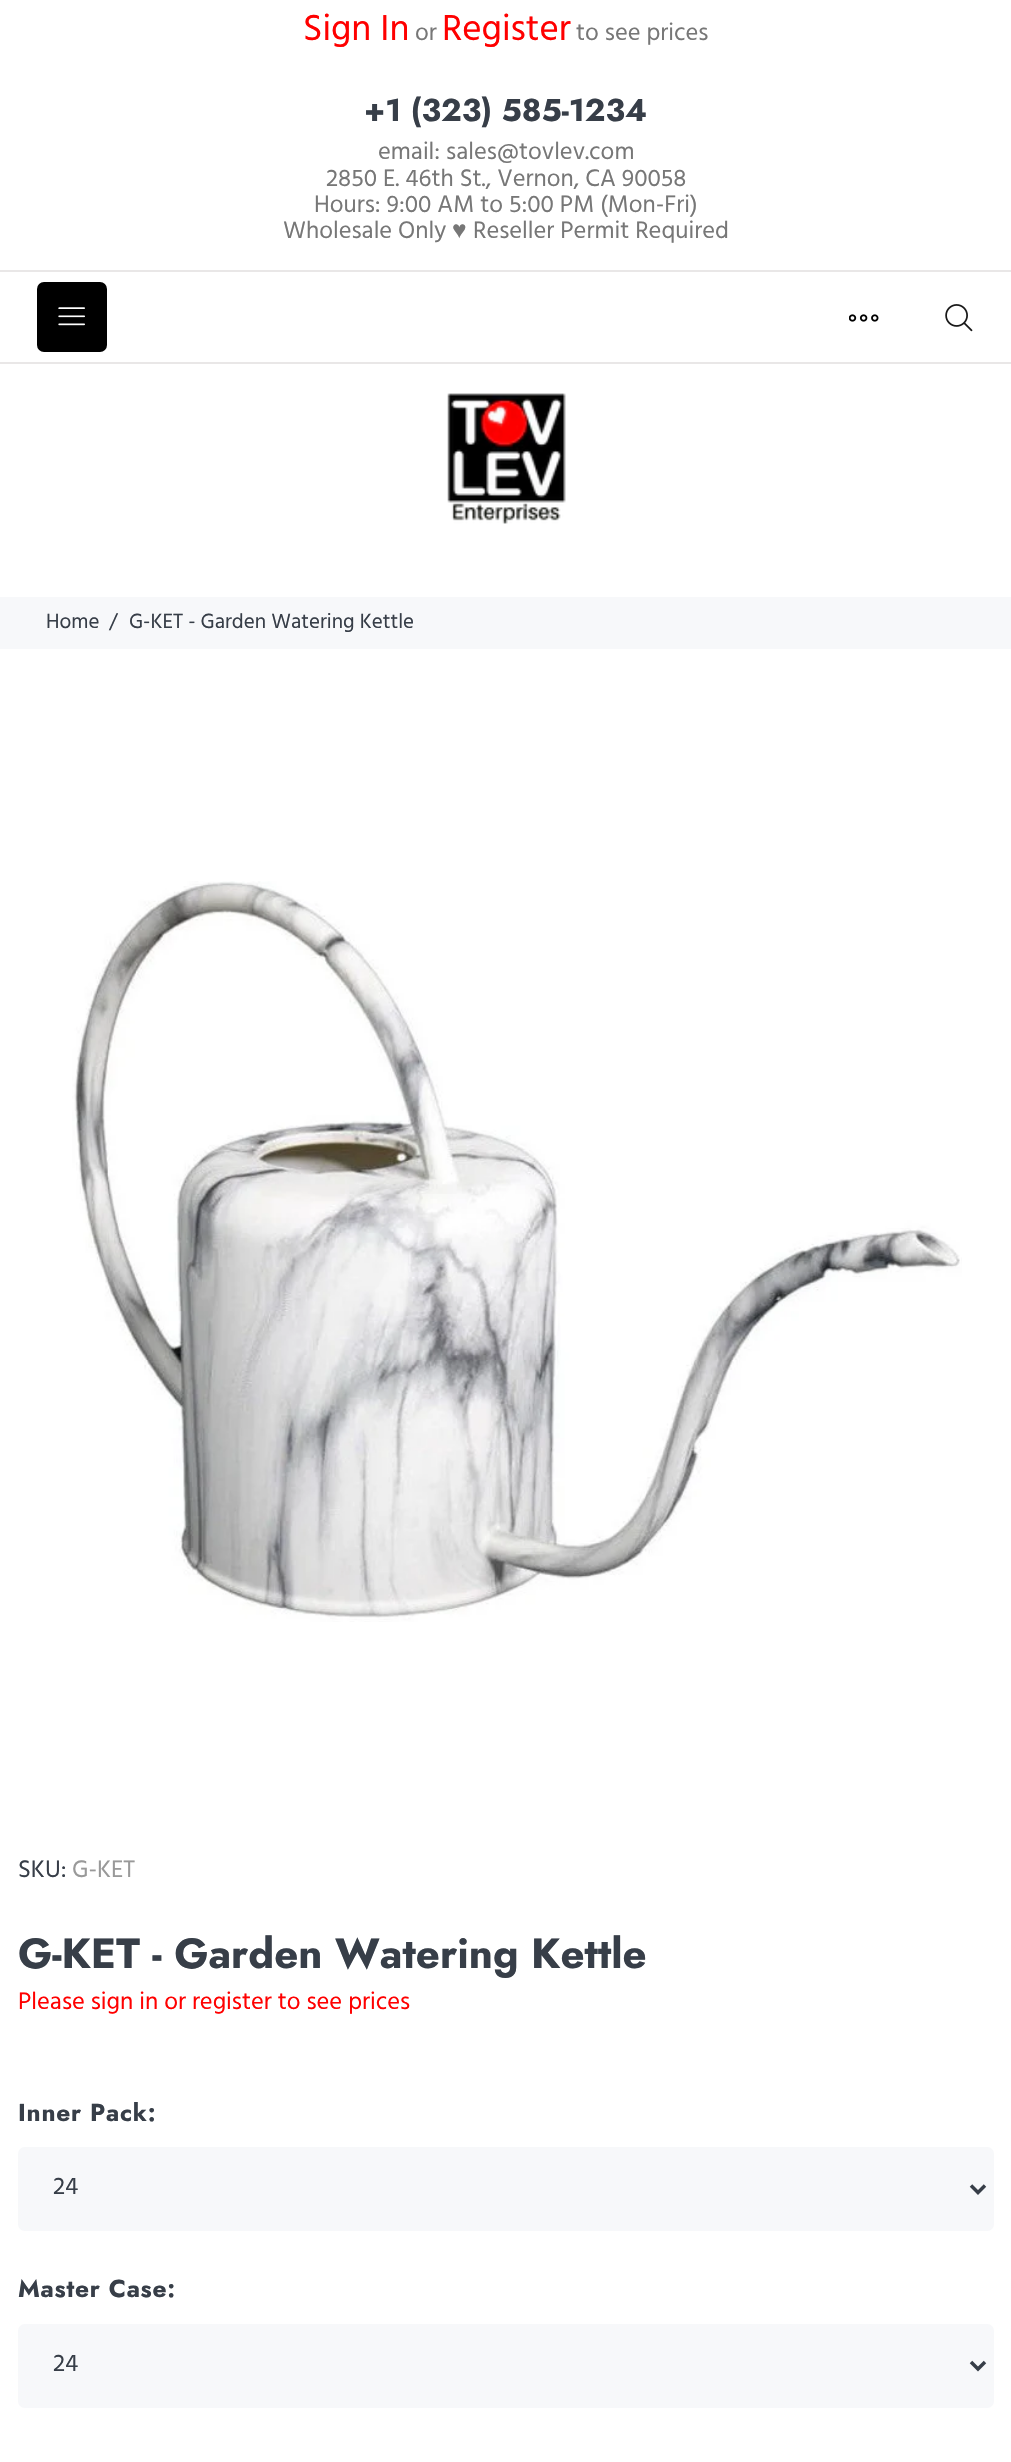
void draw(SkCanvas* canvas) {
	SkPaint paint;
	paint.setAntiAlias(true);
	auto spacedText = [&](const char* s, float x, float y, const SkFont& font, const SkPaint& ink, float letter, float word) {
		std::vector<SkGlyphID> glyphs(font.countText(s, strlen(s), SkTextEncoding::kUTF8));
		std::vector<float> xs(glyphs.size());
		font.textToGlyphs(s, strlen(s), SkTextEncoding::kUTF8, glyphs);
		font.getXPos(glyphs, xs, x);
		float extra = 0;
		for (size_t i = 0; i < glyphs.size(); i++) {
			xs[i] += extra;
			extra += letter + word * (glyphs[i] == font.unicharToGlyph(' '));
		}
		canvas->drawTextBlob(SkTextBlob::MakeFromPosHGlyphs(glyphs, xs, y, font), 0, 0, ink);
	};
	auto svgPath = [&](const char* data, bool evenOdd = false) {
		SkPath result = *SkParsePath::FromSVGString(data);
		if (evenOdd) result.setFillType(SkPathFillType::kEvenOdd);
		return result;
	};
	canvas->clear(0xffffffff);
	SkFont f1(fontMgr->matchFamilyStyle("Hind", SkFontStyle::Normal()), 37);
	f1.setSubpixel(true);
	paint.setColor(0xffff0000);
	canvas->drawString("Sign In", 303, 40, f1, paint);
	SkFont f2(fontMgr->matchFamilyStyle("Hind", SkFontStyle::Normal()), 24.5);
	f2.setSubpixel(true);
	paint.setColor(0xff777777);
	canvas->drawString("or", 415, 40, f2, paint);
	paint.setColor(0xffff0000);
	canvas->drawString("Register", 442, 40, f1, paint);
	paint.setColor(0xff777777);
	canvas->drawString("to see prices", 576, 40, f2, paint);
	SkFont f3(fontMgr->matchFamilyStyle("Jost", SkFontStyle::Bold()), 31.5);
	f3.setSubpixel(true);
	paint.setColor(0xff373e48);
	canvas->drawString("+1 (323) 585-1234", 364, 121, f3, paint);
	paint.setColor(0xff777777);
	canvas->drawString("email: sales@tovlev.com", 378, 159, f2, paint);
	canvas->drawString("2850 E. 46th St., Vernon, CA 90058", 326, 186, f2, paint);
	canvas->drawString("Hours: 9:00 AM to 5:00 PM (Mon-Fri)", 314, 212, f2, paint);
	canvas->drawString("Wholesale Only", 283, 238, f2, paint);
	SkFont f4(fontMgr->matchFamilyStyle("Liberation Sans", SkFontStyle::Normal()), 24.5);
	f4.setSubpixel(true);
	canvas->drawString("♥", 452, 238, f4, paint);
	canvas->drawString("Reseller Permit Required", 473, 238, f2, paint);
	paint.setColor(0xffe9e7e7);
	canvas->drawRect(SkRect::MakeXYWH(0, 270, 1011, 2), paint);
	paint.setColor(0xff000000);
	canvas->drawRoundRect(SkRect::MakeXYWH(37, 282, 70, 70), 7, 7, paint);
	canvas->drawImageRect(SkImages::DeferredFromEncodedData(SkData::MakeFromFileName("img1.png")), SkRect::MakeXYWH(58, 307, 27, 19), SkSamplingOptions());
	canvas->drawImageRect(SkImages::DeferredFromEncodedData(SkData::MakeFromFileName("img2.png")), SkRect::MakeXYWH(849, 314, 30, 8), SkSamplingOptions());
	canvas->drawImageRect(SkImages::DeferredFromEncodedData(SkData::MakeFromFileName("img3.png")), SkRect::MakeXYWH(945, 304, 28, 28), SkSamplingOptions());
	paint.setColor(0xffe9e7e7);
	canvas->drawRect(SkRect::MakeXYWH(0, 362, 1011, 2), paint);
	canvas->drawImageRect(SkImages::DeferredFromEncodedData(SkData::MakeFromFileName("img4.png")), SkRect::MakeXYWH(447, 393, 119, 131), SkSamplingOptions());
	paint.setColor(0xfff7f8fa);
	canvas->drawRect(SkRect::MakeXYWH(0, 597, 1011, 52), paint);
	SkFont f5(fontMgr->matchFamilyStyle("Hind", SkFontStyle::Normal()), 21);
	f5.setSubpixel(true);
	paint.setColor(0xff373e48);
	canvas->drawString("Home", 46, 628, f5, paint);
	canvas->drawString("/", 109, 628, f5, paint);
	canvas->drawString("G-KET - Garden Watering Kettle", 129, 628, f5, paint);
	canvas->drawImageRect(SkImages::DeferredFromEncodedData(SkData::MakeFromFileName("img5.png")), SkRect::MakeXYWH(72, 881, 890, 741), SkSamplingOptions());
	canvas->drawString("SKU:", 18, 1877, f2, paint);
	paint.setColor(0xff999999);
	canvas->drawString("G-KET", 72, 1877, f2, paint);
	SkFont f6(fontMgr->matchFamilyStyle("Jost", SkFontStyle::Bold()), 42);
	f6.setSubpixel(true);
	paint.setColor(0xff373e48);
	canvas->drawString("G-KET - Garden Watering Kettle", 18, 1968, f6, paint);
	paint.setColor(0xffff0000);
	canvas->drawString("Please sign in or register to see prices", 18, 2009, f2, paint);
	SkFont f7(fontMgr->matchFamilyStyle("Jost", SkFontStyle::Bold()), 24.5);
	f7.setSubpixel(true);
	paint.setColor(0xff373e48);
	spacedText("Inner Pack:", 18, 2121, f7, paint, 0.75, 0);
	paint.setColor(0xfff7f8fa);
	canvas->drawRoundRect(SkRect::MakeXYWH(18, 2147, 976, 84), 7, 7, paint);
	paint.setStroke(true);
	paint.setStrokeWidth(3.5);
	paint.setColor(0xff373e48);
	canvas->drawPath(svgPath("M971 2185.5L978 2192.5L985 2185.5"), paint);
	paint.setStroke(false);
	canvas->drawString("24", 53, 2194, f2, paint);
	spacedText("Master Case:", 18, 2297, f7, paint, 0.75, 0);
	paint.setColor(0xfff7f8fa);
	canvas->drawRoundRect(SkRect::MakeXYWH(18, 2324, 976, 84), 7, 7, paint);
	paint.setStroke(true);
	paint.setColor(0xff373e48);
	canvas->drawPath(svgPath("M971 2362L978 2369L985 2362"), paint);
	paint.setStroke(false);
	canvas->drawString("24", 53, 2371, f2, paint);
}
